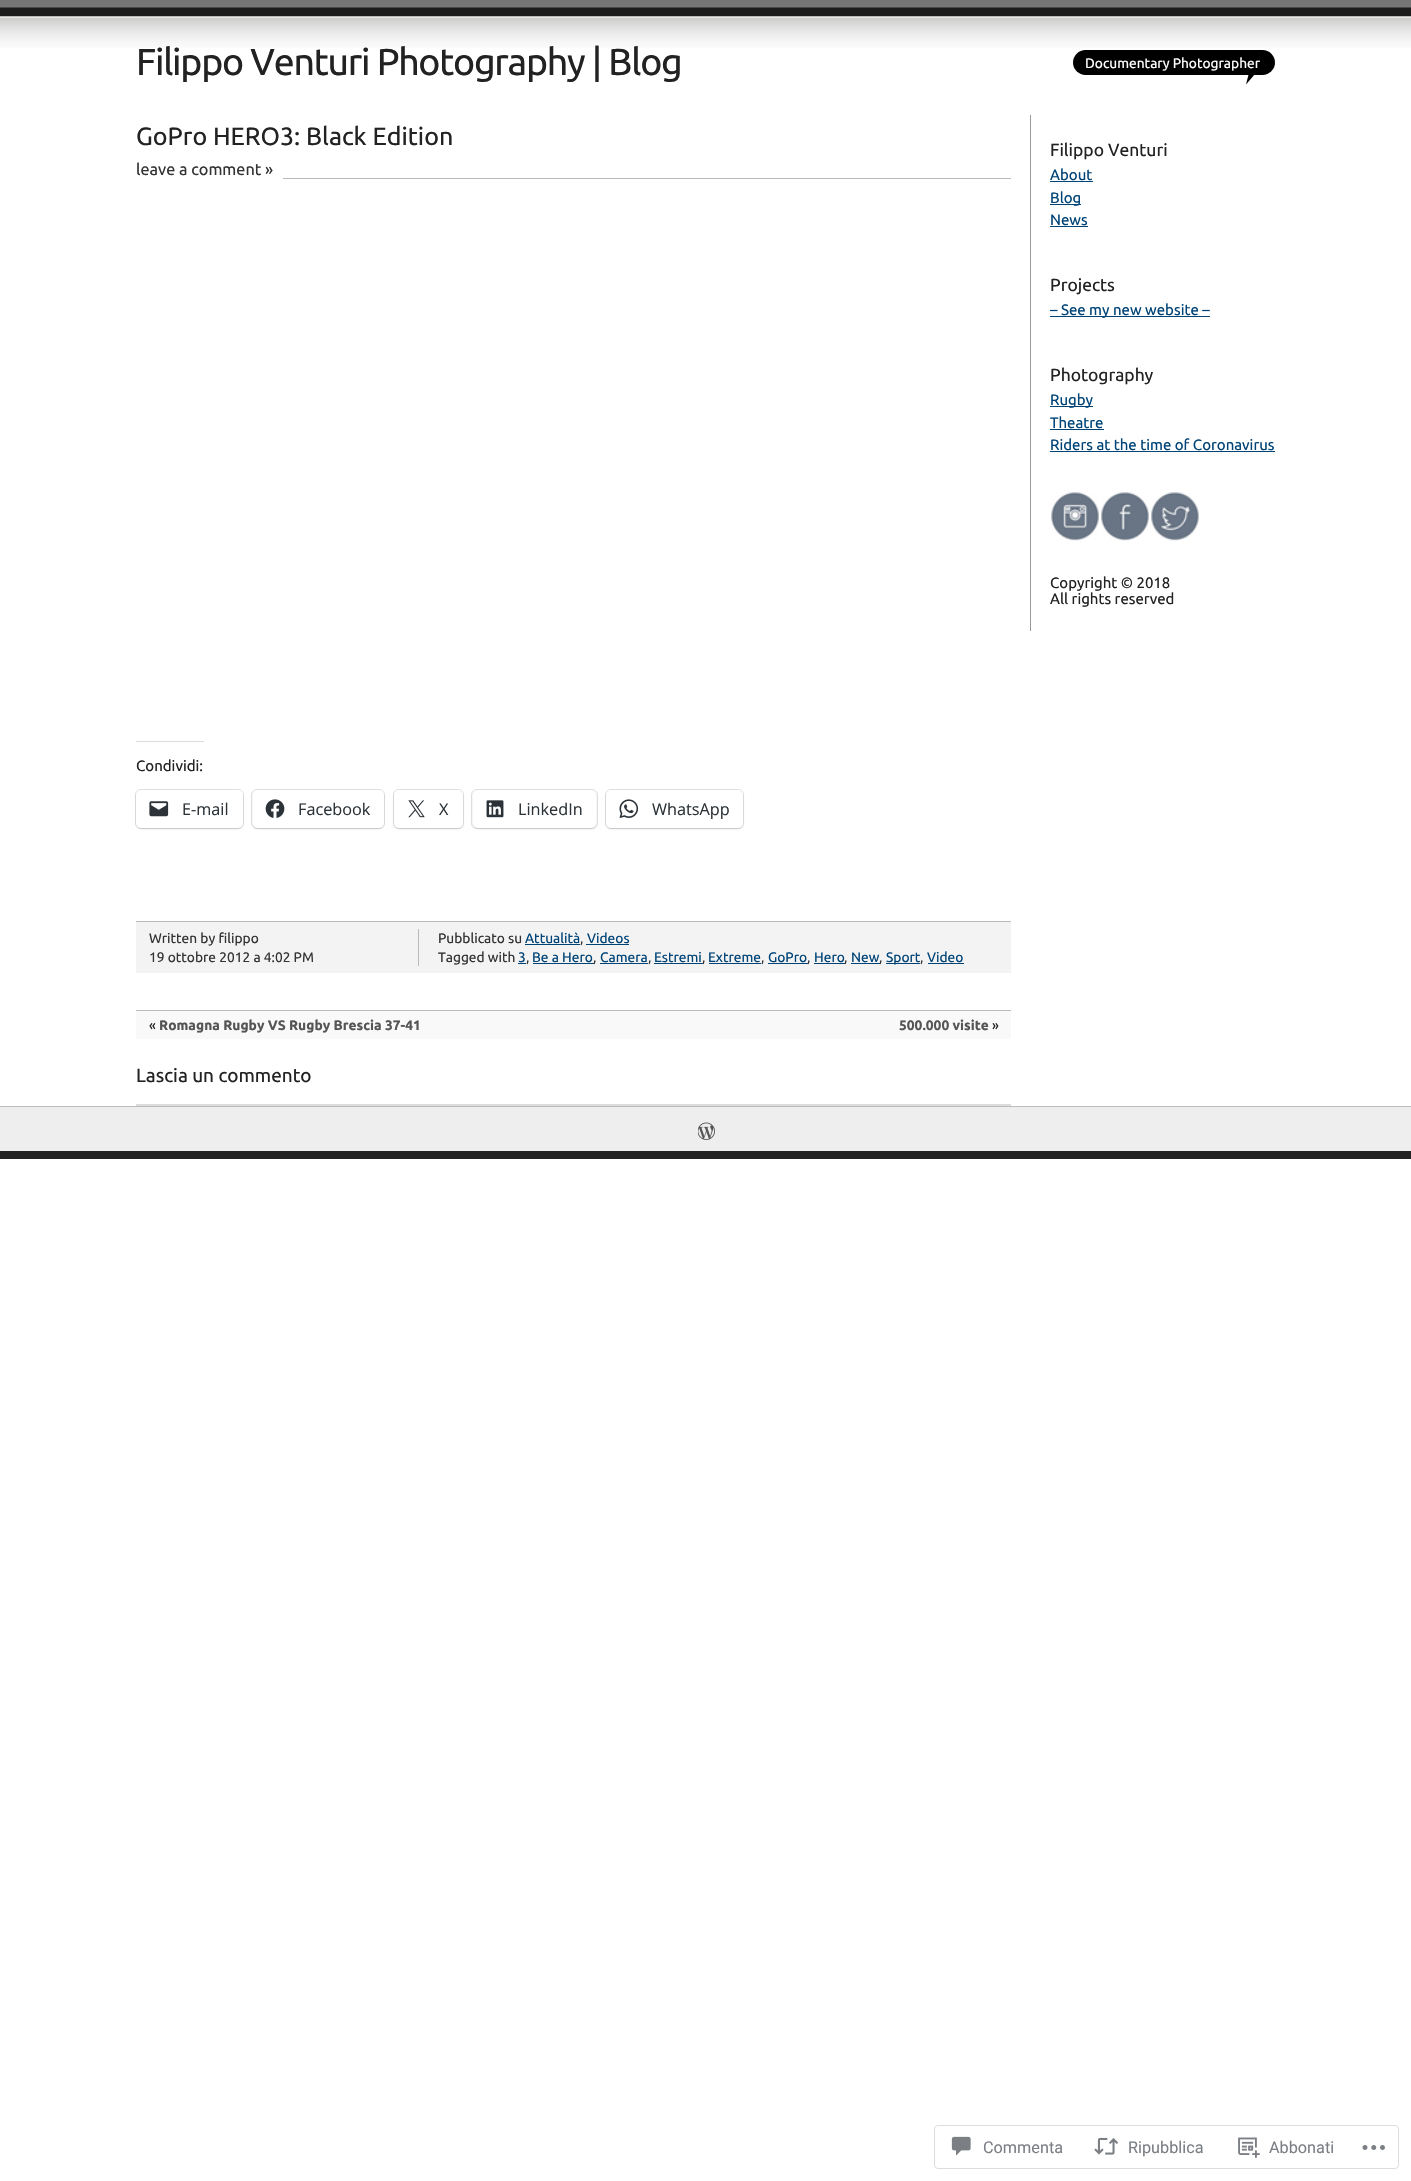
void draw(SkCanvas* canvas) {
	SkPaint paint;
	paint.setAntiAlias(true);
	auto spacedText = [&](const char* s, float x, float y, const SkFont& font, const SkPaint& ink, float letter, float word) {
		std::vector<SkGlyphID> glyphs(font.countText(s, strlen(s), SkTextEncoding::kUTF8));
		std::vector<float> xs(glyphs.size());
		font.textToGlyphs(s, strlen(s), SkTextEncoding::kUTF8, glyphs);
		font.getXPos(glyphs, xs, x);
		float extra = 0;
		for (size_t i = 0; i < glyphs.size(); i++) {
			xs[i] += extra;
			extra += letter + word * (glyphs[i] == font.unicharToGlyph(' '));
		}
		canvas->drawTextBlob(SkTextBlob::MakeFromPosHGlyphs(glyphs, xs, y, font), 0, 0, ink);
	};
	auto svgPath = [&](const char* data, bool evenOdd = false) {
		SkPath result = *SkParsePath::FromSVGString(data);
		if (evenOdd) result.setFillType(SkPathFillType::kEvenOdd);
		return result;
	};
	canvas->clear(0xffffffff);
	canvas->drawImageRect(SkImages::DeferredFromEncodedData(SkData::MakeFromFileName("img1.png")), SkRect::MakeXYWH(0, 0, 1411, 48), SkSamplingOptions());
	SkFont f1(fontMgr->matchFamilyStyle("Ubuntu", SkFontStyle::Normal()), 37.5);
	f1.setSubpixel(true);
	paint.setColor(0xff222222);
	spacedText("Filippo Venturi Photography | Blog", 136, 75, f1, paint, -1.25, 0);
	paint.setColor(0xff000000);
	canvas->drawPath(svgPath("M1261.5 66.5L1246 84.5L1252.5 59Z"), paint);
	canvas->drawRoundRect(SkRect::MakeXYWH(1073, 50, 202, 25), 12.5, 12.5, paint);
	SkFont f2(fontMgr->matchFamilyStyle("Ubuntu", SkFontStyle::Normal()), 13.75);
	f2.setSubpixel(true);
	paint.setColor(0xffffffff);
	canvas->drawString("Documentary Photographer", 1085, 68, f2, paint);
	SkFont f3(fontMgr->matchFamilyStyle("Ubuntu", SkFontStyle::Normal()), 25);
	f3.setSubpixel(true);
	paint.setColor(0xff222222);
	canvas->drawString("GoPro HERO3: Black Edition", 136, 145, f3, paint);
	paint.setColor(0xffbbbbbb);
	canvas->drawRect(SkRect::MakeXYWH(283, 178, 728, 1), paint);
	SkFont f4(fontMgr->matchFamilyStyle("Ubuntu", SkFontStyle::Normal()), 16.25);
	f4.setSubpixel(true);
	paint.setColor(0xff333333);
	canvas->drawString("leave a comment »", 136, 175, f4, paint);
	paint.setColor(0xffdcdcde);
	canvas->drawRect(SkRect::MakeXYWH(136, 741, 68, 1), paint);
	SkFont f5(fontMgr->matchFamilyStyle("Ubuntu", SkFontStyle::Normal()), 15);
	f5.setSubpixel(true);
	paint.setColor(0xff222222);
	canvas->drawString("Condividi:", 136, 771, f5, paint);
	paint.setStroke(true);
	paint.setStrokeWidth(1);
	paint.setColor(0xffe0e0e0);
	canvas->drawRoundRect(SkRect::MakeXYWH(135.5, 789.5, 108, 39), 5.5, 5.5, paint);
	paint.setStroke(false);
	paint.setColor(0x1f000000);
	paint.setMaskFilter(SkMaskFilter::MakeBlur(kNormal_SkBlurStyle, 1));
	canvas->drawRoundRect(SkRect::MakeXYWH(136, 791, 107, 38), 5, 5, paint);
	paint.setMaskFilter(nullptr);
	paint.setColor(0xffffffff);
	canvas->drawRoundRect(SkRect::MakeXYWH(136, 790, 107, 38), 5, 5, paint);
	canvas->drawImageRect(SkImages::DeferredFromEncodedData(SkData::MakeFromFileName("img2.png")), SkRect::MakeXYWH(149, 801, 20, 16), SkSamplingOptions());
	SkFont f6(fontMgr->matchFamilyStyle("Open Sans", SkFontStyle::Normal()), 16.25);
	f6.setSubpixel(true);
	paint.setColor(0xff2c3338);
	canvas->drawString("E-mail", 182, 815, f6, paint);
	paint.setStroke(true);
	paint.setColor(0xffe0e0e0);
	canvas->drawRoundRect(SkRect::MakeXYWH(251.5, 789.5, 133, 39), 5.5, 5.5, paint);
	paint.setStroke(false);
	paint.setColor(0x1f000000);
	paint.setMaskFilter(SkMaskFilter::MakeBlur(kNormal_SkBlurStyle, 1));
	canvas->drawRoundRect(SkRect::MakeXYWH(253, 791, 131, 38), 5, 5, paint);
	paint.setMaskFilter(nullptr);
	paint.setColor(0xffffffff);
	canvas->drawRoundRect(SkRect::MakeXYWH(253, 790, 131, 38), 5, 5, paint);
	canvas->drawImageRect(SkImages::DeferredFromEncodedData(SkData::MakeFromFileName("img3.png")), SkRect::MakeXYWH(265, 799, 20, 19), SkSamplingOptions());
	paint.setColor(0xff2c3338);
	canvas->drawString("Facebook", 298, 815, f6, paint);
	paint.setStroke(true);
	paint.setColor(0xffe0e0e0);
	canvas->drawRoundRect(SkRect::MakeXYWH(393.5, 789.5, 70, 39), 5.5, 5.5, paint);
	paint.setStroke(false);
	paint.setColor(0x1f000000);
	paint.setMaskFilter(SkMaskFilter::MakeBlur(kNormal_SkBlurStyle, 1));
	canvas->drawRoundRect(SkRect::MakeXYWH(394, 791, 69, 38), 5, 5, paint);
	paint.setMaskFilter(nullptr);
	paint.setColor(0xffffffff);
	canvas->drawRoundRect(SkRect::MakeXYWH(394, 790, 69, 38), 5, 5, paint);
	canvas->drawImageRect(SkImages::DeferredFromEncodedData(SkData::MakeFromFileName("img4.png")), SkRect::MakeXYWH(408, 800, 17, 18), SkSamplingOptions());
	paint.setColor(0xff2c3338);
	canvas->drawString("X", 439, 815, f6, paint);
	paint.setStroke(true);
	paint.setColor(0xffe0e0e0);
	canvas->drawRoundRect(SkRect::MakeXYWH(471.5, 789.5, 126, 39), 5.5, 5.5, paint);
	paint.setStroke(false);
	paint.setColor(0x1f000000);
	paint.setMaskFilter(SkMaskFilter::MakeBlur(kNormal_SkBlurStyle, 1));
	canvas->drawRoundRect(SkRect::MakeXYWH(473, 791, 123, 38), 5, 5, paint);
	paint.setMaskFilter(nullptr);
	paint.setColor(0xffffffff);
	canvas->drawRoundRect(SkRect::MakeXYWH(473, 790, 123, 38), 5, 5, paint);
	canvas->drawImageRect(SkImages::DeferredFromEncodedData(SkData::MakeFromFileName("img5.png")), SkRect::MakeXYWH(486, 800, 18, 18), SkSamplingOptions());
	paint.setColor(0xff2c3338);
	canvas->drawString("LinkedIn", 518, 815, f6, paint);
	paint.setStroke(true);
	paint.setColor(0xffe0e0e0);
	canvas->drawRoundRect(SkRect::MakeXYWH(605.5, 789.5, 138, 39), 5.5, 5.5, paint);
	paint.setStroke(false);
	paint.setColor(0x1f000000);
	paint.setMaskFilter(SkMaskFilter::MakeBlur(kNormal_SkBlurStyle, 1));
	canvas->drawRoundRect(SkRect::MakeXYWH(606, 791, 137, 38), 5, 5, paint);
	paint.setMaskFilter(nullptr);
	paint.setColor(0xffffffff);
	canvas->drawRoundRect(SkRect::MakeXYWH(606, 790, 137, 38), 5, 5, paint);
	canvas->drawImageRect(SkImages::DeferredFromEncodedData(SkData::MakeFromFileName("img6.png")), SkRect::MakeXYWH(619, 799, 20, 19), SkSamplingOptions());
	paint.setColor(0xff2c3338);
	canvas->drawString("WhatsApp", 652, 815, f6, paint);
	paint.setColor(0xfff3f3f3);
	canvas->drawRect(SkRect::MakeXYWH(136, 922, 875, 51), paint);
	paint.setColor(0xffbbbbbb);
	canvas->drawRect(SkRect::MakeXYWH(136, 921, 875, 1), paint);
	canvas->drawRect(SkRect::MakeXYWH(418, 929, 1, 37), paint);
	paint.setColor(0xff333333);
	canvas->drawString("Written by filippo", 149, 943, f2, paint);
	canvas->drawString("19 ottobre 2012 a 4:02 PM", 149, 962, f2, paint);
	canvas->drawString("Pubblicato su", 438, 943, f2, paint);
	paint.setColor(0xff004477);
	canvas->drawString("Attualità", 525, 943, f2, paint);
	canvas->drawRect(SkRect::MakeXYWH(525, 944, 55, 1), paint);
	paint.setColor(0xff333333);
	canvas->drawString(",", 580, 943, f2, paint);
	paint.setColor(0xff004477);
	canvas->drawString("Videos", 587, 943, f2, paint);
	canvas->drawRect(SkRect::MakeXYWH(586, 944, 43, 1), paint);
	paint.setColor(0xff333333);
	canvas->drawString("Tagged with", 438, 962, f2, paint);
	paint.setColor(0xff004477);
	canvas->drawString("3", 518, 962, f2, paint);
	canvas->drawRect(SkRect::MakeXYWH(518, 963, 8, 1), paint);
	paint.setColor(0xff333333);
	canvas->drawString(",", 526, 962, f2, paint);
	paint.setColor(0xff004477);
	canvas->drawString("Be a Hero", 532, 962, f2, paint);
	canvas->drawRect(SkRect::MakeXYWH(533, 963, 61, 1), paint);
	paint.setColor(0xff333333);
	canvas->drawString(",", 593, 962, f2, paint);
	paint.setColor(0xff004477);
	canvas->drawString("Camera", 600, 962, f2, paint);
	canvas->drawRect(SkRect::MakeXYWH(600, 963, 48, 1), paint);
	paint.setColor(0xff333333);
	canvas->drawString(",", 648, 962, f2, paint);
	paint.setColor(0xff004477);
	canvas->drawString("Estremi", 654, 962, f2, paint);
	canvas->drawRect(SkRect::MakeXYWH(654, 963, 49, 1), paint);
	paint.setColor(0xff333333);
	canvas->drawString(",", 702, 962, f2, paint);
	paint.setColor(0xff004477);
	canvas->drawString("Extreme", 708, 962, f2, paint);
	canvas->drawRect(SkRect::MakeXYWH(709, 963, 52, 1), paint);
	paint.setColor(0xff333333);
	canvas->drawString(",", 761, 962, f2, paint);
	paint.setColor(0xff004477);
	canvas->drawString("GoPro", 768, 962, f2, paint);
	canvas->drawRect(SkRect::MakeXYWH(768, 963, 40, 1), paint);
	paint.setColor(0xff333333);
	canvas->drawString(",", 807, 962, f2, paint);
	paint.setColor(0xff004477);
	canvas->drawString("Hero", 814, 962, f2, paint);
	canvas->drawRect(SkRect::MakeXYWH(814, 963, 31, 1), paint);
	paint.setColor(0xff333333);
	canvas->drawString(",", 844, 962, f2, paint);
	paint.setColor(0xff004477);
	canvas->drawString("New", 851, 962, f2, paint);
	canvas->drawRect(SkRect::MakeXYWH(851, 963, 29, 1), paint);
	paint.setColor(0xff333333);
	canvas->drawString(",", 879, 962, f2, paint);
	paint.setColor(0xff004477);
	canvas->drawRect(SkRect::MakeXYWH(886, 963, 34, 1), paint);
	canvas->drawString("Sport", 886, 962, f2, paint);
	paint.setColor(0xff333333);
	canvas->drawString(",", 920, 962, f2, paint);
	paint.setColor(0xff004477);
	canvas->drawString("Video", 927, 962, f2, paint);
	canvas->drawRect(SkRect::MakeXYWH(928, 963, 36, 1), paint);
	paint.setColor(0xfff9f9f9);
	canvas->drawRect(SkRect::MakeXYWH(136, 1011, 875, 28), paint);
	paint.setColor(0xffbbbbbb);
	canvas->drawRect(SkRect::MakeXYWH(136, 1010, 875, 1), paint);
	paint.setColor(0xff222222);
	canvas->drawString("«", 149, 1030, f2, paint);
	SkFont f7(fontMgr->matchFamilyStyle("Ubuntu", SkFontStyle::Bold()), 13.75);
	f7.setSubpixel(true);
	paint.setColor(0xff555555);
	canvas->drawString("Romagna Rugby VS Rugby Brescia 37-41", 159, 1030, f7, paint);
	canvas->drawString("500.000 visite", 899, 1030, f7, paint);
	paint.setColor(0xff222222);
	canvas->drawString("»", 992, 1030, f2, paint);
	SkFont f8(fontMgr->matchFamilyStyle("Ubuntu", SkFontStyle::Normal()), 19);
	f8.setSubpixel(true);
	canvas->drawString("Lascia un commento", 136, 1082, f8, paint);
	paint.setColor(0xffdcdcde);
	canvas->drawRect(SkRect::MakeXYWH(136, 1104, 875, 2), paint);
	paint.setColor(0xff999999);
	canvas->drawRect(SkRect::MakeXYWH(1030, 115, 1, 516), paint);
	SkFont f9(fontMgr->matchFamilyStyle("Ubuntu", SkFontStyle::Normal()), 17.5);
	f9.setSubpixel(true);
	paint.setColor(0xff222222);
	canvas->drawString("Filippo Venturi", 1050, 156, f9, paint);
	paint.setColor(0xff004477);
	canvas->drawString("About", 1050, 180, f5, paint);
	canvas->drawRect(SkRect::MakeXYWH(1050, 181, 43, 1), paint);
	canvas->drawRect(SkRect::MakeXYWH(1050, 204, 31, 1), paint);
	canvas->drawString("Blog", 1050, 203, f5, paint);
	canvas->drawString("News", 1050, 225, f5, paint);
	canvas->drawRect(SkRect::MakeXYWH(1050, 226, 38, 1), paint);
	paint.setColor(0xff222222);
	canvas->drawString("Projects", 1050, 291, f9, paint);
	paint.setColor(0xff004477);
	canvas->drawRect(SkRect::MakeXYWH(1050, 316, 160, 1), paint);
	canvas->drawString("– See my new website –", 1050, 315, f5, paint);
	paint.setColor(0xff222222);
	canvas->drawString("Photography", 1050, 381, f9, paint);
	paint.setColor(0xff004477);
	canvas->drawRect(SkRect::MakeXYWH(1050, 406, 43, 1), paint);
	canvas->drawString("Rugby", 1050, 405, f5, paint);
	canvas->drawString("Theatre", 1050, 428, f5, paint);
	canvas->drawRect(SkRect::MakeXYWH(1050, 429, 54, 1), paint);
	canvas->drawString("Riders at the time of Coronavirus", 1050, 450, f5, paint);
	canvas->drawRect(SkRect::MakeXYWH(1050, 451, 225, 1), paint);
	canvas->drawImageRect(SkImages::DeferredFromEncodedData(SkData::MakeFromFileName("img7.png")), SkRect::MakeXYWH(1051, 492, 48, 49), SkSamplingOptions());
	canvas->drawImageRect(SkImages::DeferredFromEncodedData(SkData::MakeFromFileName("img8.png")), SkRect::MakeXYWH(1101, 492, 48, 49), SkSamplingOptions());
	canvas->drawImageRect(SkImages::DeferredFromEncodedData(SkData::MakeFromFileName("img9.png")), SkRect::MakeXYWH(1151, 492, 48, 49), SkSamplingOptions());
	paint.setColor(0xff222222);
	canvas->drawString("Copyright © 2018", 1050, 588, f5, paint);
	canvas->drawString("All rights reserved", 1050, 604, f5, paint);
	paint.setColor(0xffeeeeee);
	canvas->drawRect(SkRect::MakeXYWH(0, 1107, 1411, 44), paint);
	paint.setColor(0xffbbbbbb);
	canvas->drawRect(SkRect::MakeXYWH(0, 1106, 1411, 1), paint);
	paint.setColor(0xff222222);
	canvas->drawRect(SkRect::MakeXYWH(0, 1151, 1411, 8), paint);
	canvas->drawImageRect(SkImages::DeferredFromEncodedData(SkData::MakeFromFileName("img10.png")), SkRect::MakeXYWH(698, 1122, 17, 18), SkSamplingOptions());
	paint.setStroke(true);
	paint.setColor(0xffdddddf);
	canvas->drawRoundRect(SkRect::MakeXYWH(934.5, 2125.5, 464, 43), 3.5, 3.5, paint);
	canvas->drawImageRect(SkImages::DeferredFromEncodedData(SkData::MakeFromFileName("img11.png")), SkRect::MakeXYWH(951, 2136, 20, 20), SkSamplingOptions());
	SkFont f10(fontMgr->matchFamilyStyle("Roboto", SkFontStyle::Normal()), 16.25);
	f10.setSubpixel(true);
	paint.setStroke(false);
	paint.setColor(0xff7b7f85);
	canvas->drawString("Commenta", 983, 2153, f10, paint);
	canvas->drawImageRect(SkImages::DeferredFromEncodedData(SkData::MakeFromFileName("img12.png")), SkRect::MakeXYWH(1094, 2137, 25, 18), SkSamplingOptions());
	canvas->drawString("Ripubblica", 1128, 2153, f10, paint);
	canvas->drawImageRect(SkImages::DeferredFromEncodedData(SkData::MakeFromFileName("img13.png")), SkRect::MakeXYWH(1238, 2137, 22, 21), SkSamplingOptions());
	canvas->drawString("Abbonati", 1269, 2153, f10, paint);
	canvas->drawImageRect(SkImages::DeferredFromEncodedData(SkData::MakeFromFileName("img14.png")), SkRect::MakeXYWH(1362, 2145, 23, 5), SkSamplingOptions());
}
